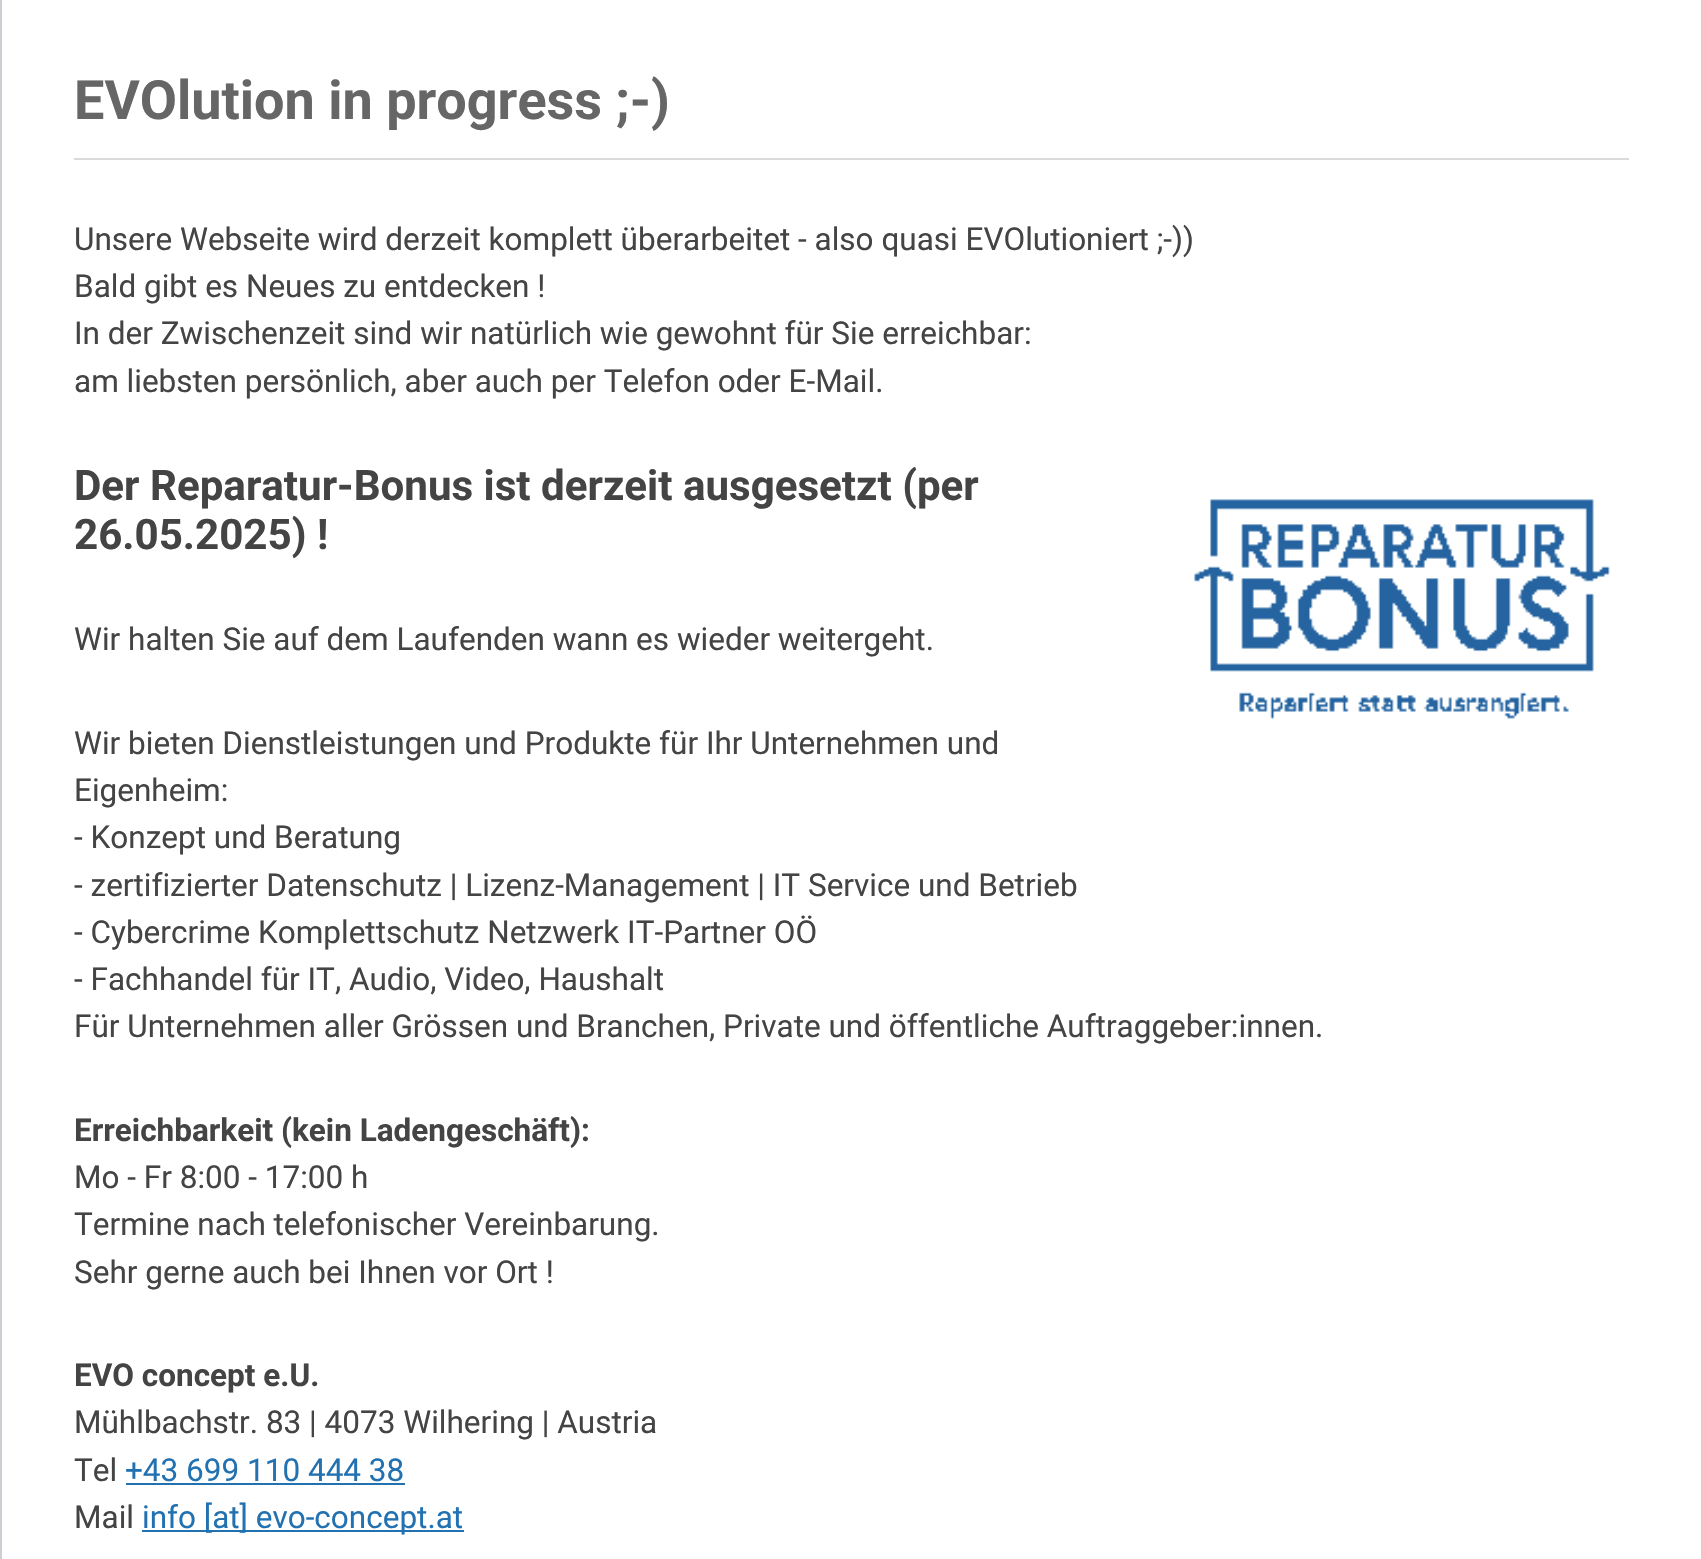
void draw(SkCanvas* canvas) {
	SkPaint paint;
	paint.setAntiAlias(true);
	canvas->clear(0xffffffff);
	paint.setStroke(true);
	paint.setStrokeWidth(2);
	paint.setColor(0xffccd0d4);
	canvas->drawRect(SkRect::MakeXYWH(1, -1, 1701, 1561), paint);
	paint.setStroke(false);
	paint.setColor(0xffdadada);
	canvas->drawRect(SkRect::MakeXYWH(74, 158, 1555, 2), paint);
	SkFont f1(fontMgr->matchFamilyStyle("Roboto", SkFontStyle::Bold()), 54);
	f1.setSubpixel(true);
	paint.setColor(0xff666666);
	canvas->drawString("EVOlution in progress ;-)", 74, 119, f1, paint);
	SkFont f2(fontMgr->matchFamilyStyle("Roboto", SkFontStyle::Normal()), 31.5);
	f2.setSubpixel(true);
	paint.setColor(0xff444444);
	canvas->drawString("Unsere Webseite wird derzeit komplett überarbeitet - also quasi EVOlutioniert ;-))", 74, 250, f2, paint);
	canvas->drawString("Bald gibt es Neues zu entdecken !", 74, 297, f2, paint);
	canvas->drawString("In der Zwischenzeit sind wir natürlich wie gewohnt für Sie erreichbar:", 74, 344, f2, paint);
	canvas->drawString("am liebsten persönlich, aber auch per Telefon oder E-Mail.", 74, 392, f2, paint);
	canvas->drawImageRect(SkImages::DeferredFromEncodedData(SkData::MakeFromFileName("img1.png")), SkRect::MakeXYWH(1194, 499, 416, 220), SkSamplingOptions());
	SkFont f3(fontMgr->matchFamilyStyle("Roboto", SkFontStyle::Bold()), 42.1);
	f3.setSubpixel(true);
	canvas->drawString("Der Reparatur-Bonus ist derzeit ausgesetzt (per", 74, 500, f3, paint);
	canvas->drawString("26.05.2025) !", 74, 549, f3, paint);
	canvas->drawString("Wir halten Sie auf dem Laufenden wann es wieder weitergeht.", 74, 650, f2, paint);
	canvas->drawString("Wir bieten Dienstleistungen und Produkte für Ihr Unternehmen und", 74, 754, f2, paint);
	canvas->drawString("Eigenheim:", 74, 801, f2, paint);
	canvas->drawString("- Konzept und Beratung", 74, 848, f2, paint);
	canvas->drawString("- zertifizierter Datenschutz | Lizenz-Management | IT Service und Betrieb", 74, 896, f2, paint);
	canvas->drawString("- Cybercrime Komplettschutz Netzwerk IT-Partner OÖ", 74, 943, f2, paint);
	canvas->drawString("- Fachhandel für IT, Audio, Video, Haushalt", 74, 990, f2, paint);
	canvas->drawString("Für Unternehmen aller Grössen und Branchen, Private und öffentliche Auftraggeber:innen.", 74, 1037, f2, paint);
	SkFont f4(fontMgr->matchFamilyStyle("Roboto", SkFontStyle::Bold()), 31.5);
	f4.setSubpixel(true);
	canvas->drawString("Erreichbarkeit (kein Ladengeschäft):", 74, 1141, f4, paint);
	canvas->drawString("Mo - Fr 8:00 - 17:00 h", 74, 1188, f2, paint);
	canvas->drawString("Termine nach telefonischer Vereinbarung.", 74, 1235, f2, paint);
	canvas->drawString("Sehr gerne auch bei Ihnen vor Ort !", 74, 1283, f2, paint);
	canvas->drawString("EVO concept e.U.", 74, 1386, f4, paint);
	canvas->drawString("Mühlbachstr. 83 | 4073 Wilhering | Austria", 74, 1433, f2, paint);
	canvas->drawString("Tel", 74, 1481, f2, paint);
	paint.setColor(0xff2271b1);
	canvas->drawString("+43 699 110 444 38", 125, 1481, f2, paint);
	canvas->drawRect(SkRect::MakeXYWH(126, 1483, 279, 2), paint);
	paint.setColor(0xff444444);
	canvas->drawString("Mail", 74, 1528, f2, paint);
	paint.setColor(0xff2271b1);
	canvas->drawRect(SkRect::MakeXYWH(142, 1530, 322, 2), paint);
	canvas->drawString("info [at] evo-concept.at", 142, 1528, f2, paint);
}
